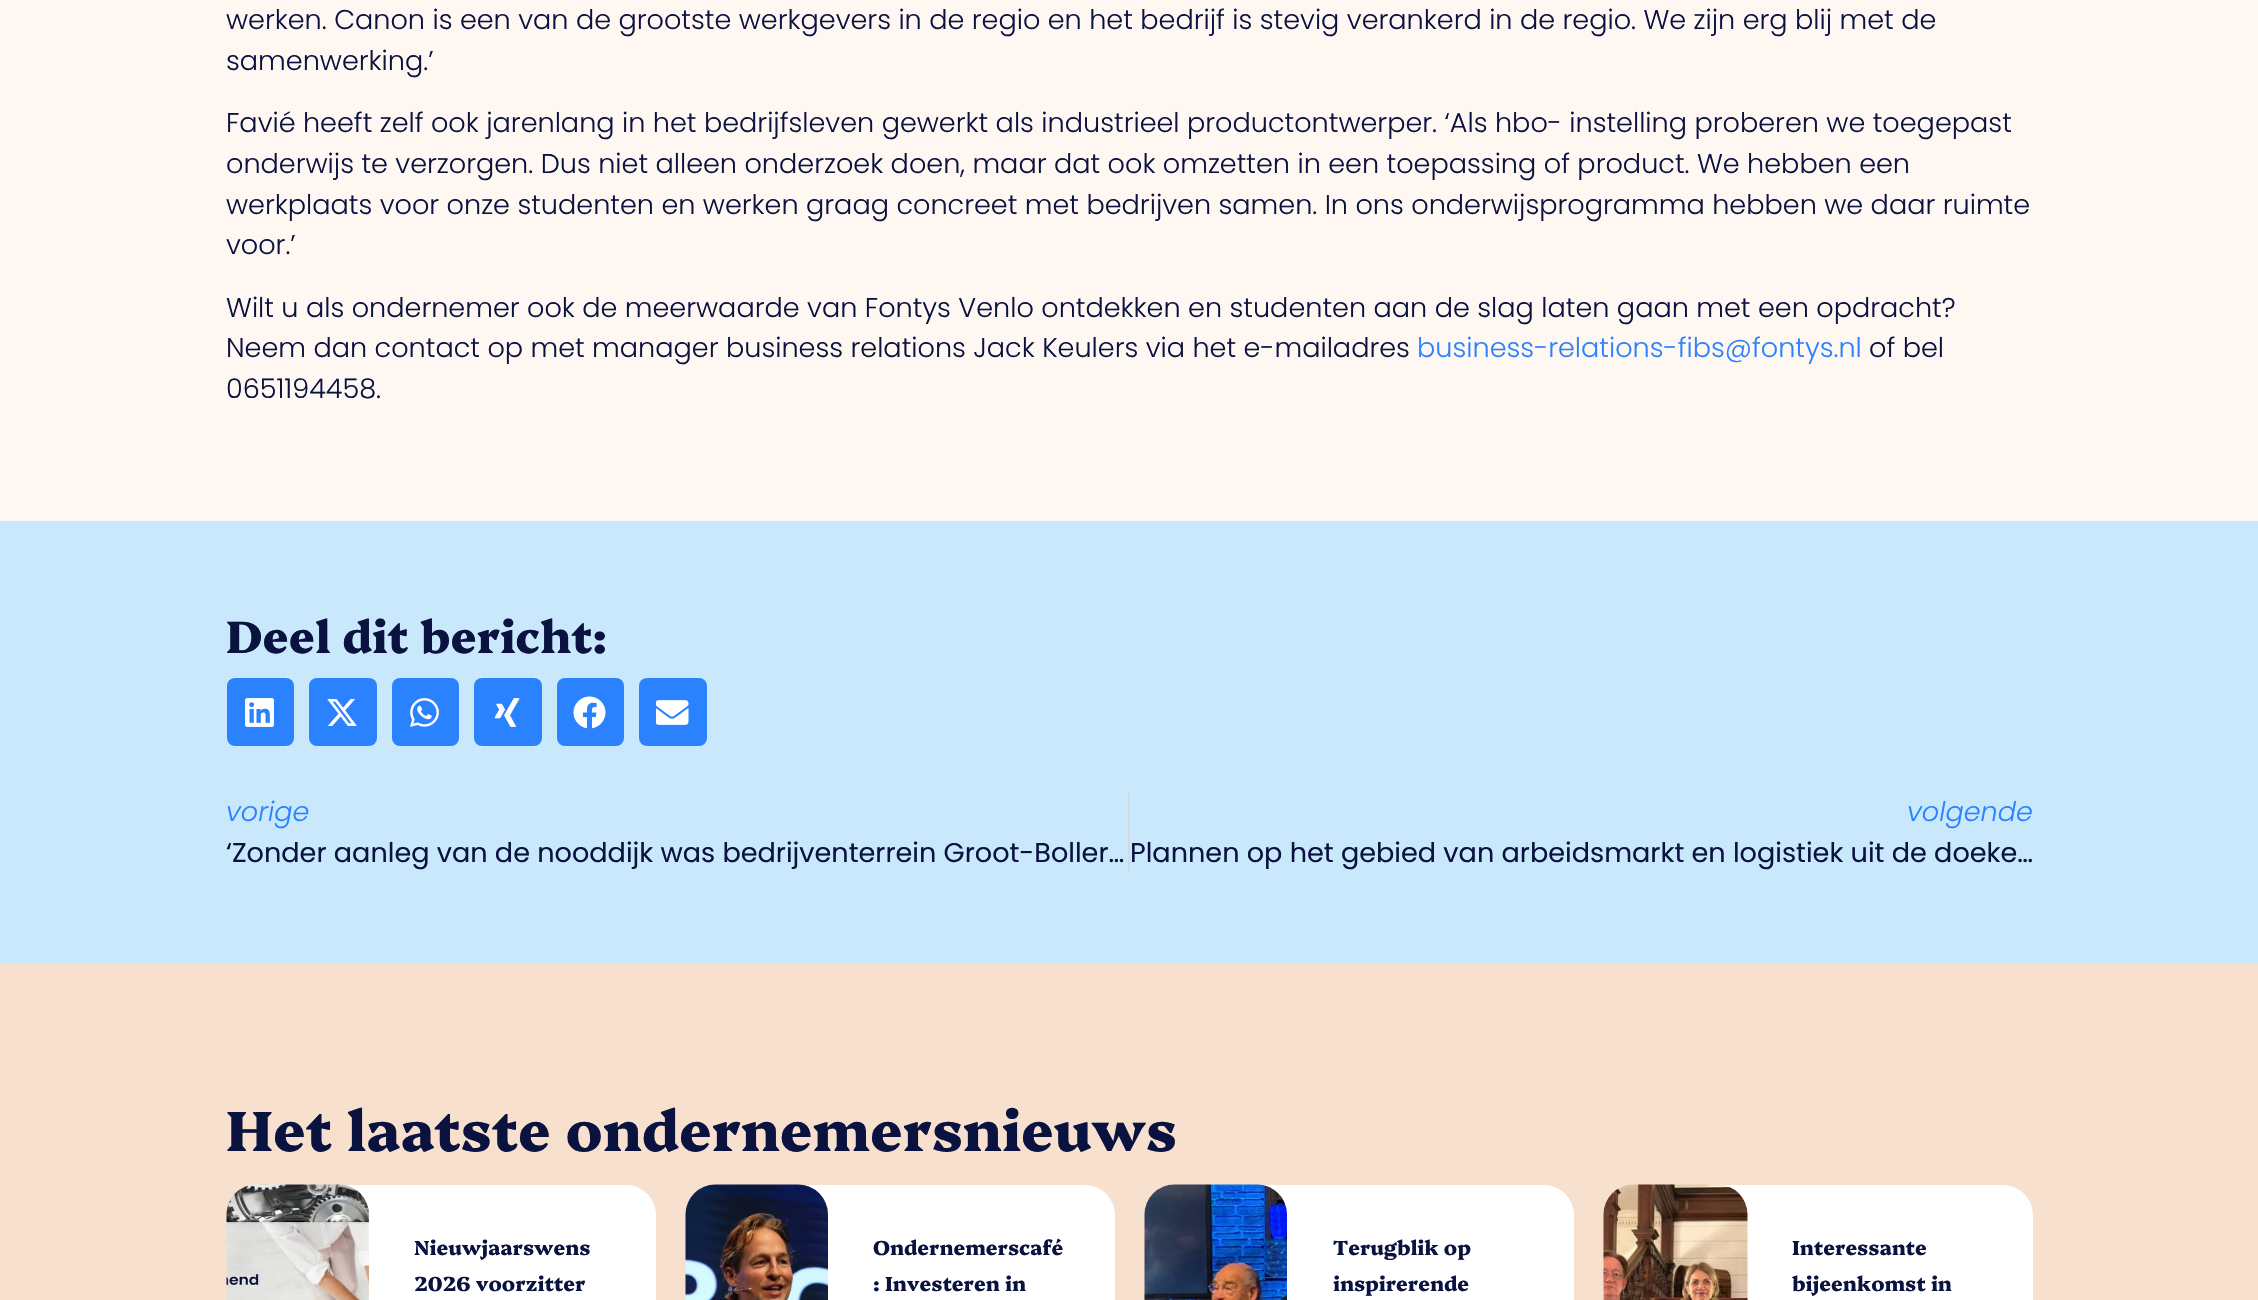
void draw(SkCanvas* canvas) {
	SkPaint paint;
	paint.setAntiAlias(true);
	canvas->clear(0xfffff7f2);
	SkFont f1(fontMgr->matchFamilyStyle("Poppins", SkFontStyle(300, SkFontStyle::kNormal_Width, SkFontStyle::kUpright_Slant)), 27.1);
	f1.setSubpixel(true);
	paint.setColor(0xff0a1240);
	canvas->drawString("werken. Canon is een van de grootste werkgevers in de regio en het bedrijf is stevig verankerd in de regio. We zijn erg blij met de", 226, 29, f1, paint);
	canvas->drawString("samenwerking.’", 226, 70, f1, paint);
	canvas->drawString("Favié heeft zelf ook jarenlang in het bedrijfsleven gewerkt als industrieel productontwerper. ‘Als hbo- instelling proberen we toegepast", 226, 132, f1, paint);
	canvas->drawString("onderwijs te verzorgen. Dus niet alleen onderzoek doen, maar dat ook omzetten in een toepassing of product. We hebben een", 226, 173, f1, paint);
	canvas->drawString("werkplaats voor onze studenten en werken graag concreet met bedrijven samen. In ons onderwijsprogramma hebben we daar ruimte", 226, 214, f1, paint);
	canvas->drawString("voor.’", 226, 254, f1, paint);
	canvas->drawString("Wilt u als ondernemer ook de meerwaarde van Fontys Venlo ontdekken en studenten aan de slag laten gaan met een opdracht?", 226, 317, f1, paint);
	canvas->drawString("Neem dan contact op met manager business relations Jack Keulers via het e-mailadres", 226, 357, f1, paint);
	paint.setColor(0xff2b82ff);
	canvas->drawString("business-relations-fibs@fontys.nl", 1417, 357, f1, paint);
	paint.setColor(0xff0a1240);
	canvas->drawString("of bel", 1869, 357, f1, paint);
	canvas->drawString("0651194458.", 226, 398, f1, paint);
	paint.setColor(0xffc9e8fc);
	canvas->drawRect(SkRect::MakeXYWH(0, 521, 2258, 442), paint);
	SkFont f2(fontMgr->matchFamilyStyle("Platypi", SkFontStyle(800, SkFontStyle::kNormal_Width, SkFontStyle::kUpright_Slant)), 45.25);
	f2.setSubpixel(true);
	paint.setColor(0xff0a1240);
	canvas->drawString("Deel dit bericht:", 226, 653, f2, paint);
	paint.setColor(0xff2b82ff);
	canvas->drawRoundRect(SkRect::MakeXYWH(227, 678, 67, 68), 8, 8, paint);
	canvas->drawImageRect(SkImages::DeferredFromEncodedData(SkData::MakeFromFileName("img1.png")), SkRect::MakeXYWH(245, 698, 29, 29), SkSamplingOptions());
	canvas->drawRoundRect(SkRect::MakeXYWH(309, 678, 68, 68), 8, 8, paint);
	canvas->drawImageRect(SkImages::DeferredFromEncodedData(SkData::MakeFromFileName("img2.png")), SkRect::MakeXYWH(327, 699, 30, 27), SkSamplingOptions());
	canvas->drawRoundRect(SkRect::MakeXYWH(392, 678, 67, 68), 8, 8, paint);
	canvas->drawImageRect(SkImages::DeferredFromEncodedData(SkData::MakeFromFileName("img3.png")), SkRect::MakeXYWH(410, 698, 29, 29), SkSamplingOptions());
	canvas->drawRoundRect(SkRect::MakeXYWH(474, 678, 68, 68), 8, 8, paint);
	canvas->drawImageRect(SkImages::DeferredFromEncodedData(SkData::MakeFromFileName("img4.png")), SkRect::MakeXYWH(494, 698, 26, 29), SkSamplingOptions());
	canvas->drawRoundRect(SkRect::MakeXYWH(557, 678, 67, 68), 8, 8, paint);
	canvas->drawImageRect(SkImages::DeferredFromEncodedData(SkData::MakeFromFileName("img5.png")), SkRect::MakeXYWH(573, 696, 33, 33), SkSamplingOptions());
	canvas->drawRoundRect(SkRect::MakeXYWH(639, 678, 68, 68), 8, 8, paint);
	canvas->drawImageRect(SkImages::DeferredFromEncodedData(SkData::MakeFromFileName("img6.png")), SkRect::MakeXYWH(656, 700, 33, 25), SkSamplingOptions());
	SkFont f3(fontMgr->matchFamilyStyle("Poppins", SkFontStyle(300, SkFontStyle::kNormal_Width, SkFontStyle::kItalic_Slant)), 27.1);
	f3.setSubpixel(true);
	canvas->drawString("vorige", 226, 821, f3, paint);
	SkFont f4(fontMgr->matchFamilyStyle("Poppins", SkFontStyle::Normal()), 27.1);
	f4.setSubpixel(true);
	paint.setColor(0xff0a1240);
	canvas->drawString("‘Zonder aanleg van de nooddijk was bedrijventerrein Groot-Boller…", 226, 862, f4, paint);
	paint.setColor(0xffd5d8dc);
	canvas->drawRect(SkRect::MakeXYWH(1128, 791, 2, 81), paint);
	paint.setColor(0xff2b82ff);
	canvas->drawString("volgende", 1907, 821, f3, paint);
	paint.setColor(0xff0a1240);
	canvas->drawString("Plannen op het gebied van arbeidsmarkt en logistiek uit de doeke…", 1130, 862, f4, paint);
	paint.setColor(0xfff7e0ce);
	canvas->drawRect(SkRect::MakeXYWH(0, 963, 2258, 337), paint);
	SkFont f5(fontMgr->matchFamilyStyle("Platypi", SkFontStyle(800, SkFontStyle::kNormal_Width, SkFontStyle::kUpright_Slant)), 56.5);
	f5.setSubpixel(true);
	paint.setColor(0xff0a1240);
	canvas->drawString("Het laatste ondernemersnieuws", 226, 1151, f5, paint);
	paint.setColor(0xffffffff);
	canvas->drawRoundRect(SkRect::MakeXYWH(227, 1185, 429, 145), 30, 30, paint);
	canvas->drawImageRect(SkImages::DeferredFromEncodedData(SkData::MakeFromFileName("img7.png")), SkRect::MakeXYWH(226, 1184, 143, 116), SkSamplingOptions());
	SkFont f6(fontMgr->matchFamilyStyle("Platypi", SkFontStyle(800, SkFontStyle::kNormal_Width, SkFontStyle::kUpright_Slant)), 20.25);
	f6.setSubpixel(true);
	paint.setColor(0xff0a1240);
	canvas->drawString("Nieuwjaarswens", 414, 1255, f6, paint);
	canvas->drawString("2026 voorzitter", 414, 1291, f6, paint);
	paint.setColor(0xffffffff);
	canvas->drawRoundRect(SkRect::MakeXYWH(686, 1185, 429, 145), 30, 30, paint);
	canvas->drawImageRect(SkImages::DeferredFromEncodedData(SkData::MakeFromFileName("img8.png")), SkRect::MakeXYWH(685, 1184, 144, 116), SkSamplingOptions());
	paint.setColor(0xff0a1240);
	canvas->drawString("Ondernemerscafé", 873, 1255, f6, paint);
	canvas->drawString(": Investeren in", 873, 1291, f6, paint);
	paint.setColor(0xffffffff);
	canvas->drawRoundRect(SkRect::MakeXYWH(1145, 1185, 429, 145), 30, 30, paint);
	canvas->drawImageRect(SkImages::DeferredFromEncodedData(SkData::MakeFromFileName("img9.png")), SkRect::MakeXYWH(1144, 1184, 144, 116), SkSamplingOptions());
	paint.setColor(0xff0a1240);
	canvas->drawString("Terugblik op", 1333, 1255, f6, paint);
	canvas->drawString("inspirerende", 1333, 1291, f6, paint);
	paint.setColor(0xffffffff);
	canvas->drawRoundRect(SkRect::MakeXYWH(1604, 1185, 429, 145), 30, 30, paint);
	canvas->drawImageRect(SkImages::DeferredFromEncodedData(SkData::MakeFromFileName("img10.png")), SkRect::MakeXYWH(1603, 1184, 145, 116), SkSamplingOptions());
	paint.setColor(0xff0a1240);
	canvas->drawString("Interessante", 1792, 1255, f6, paint);
	canvas->drawString("bijeenkomst in", 1792, 1291, f6, paint);
}
